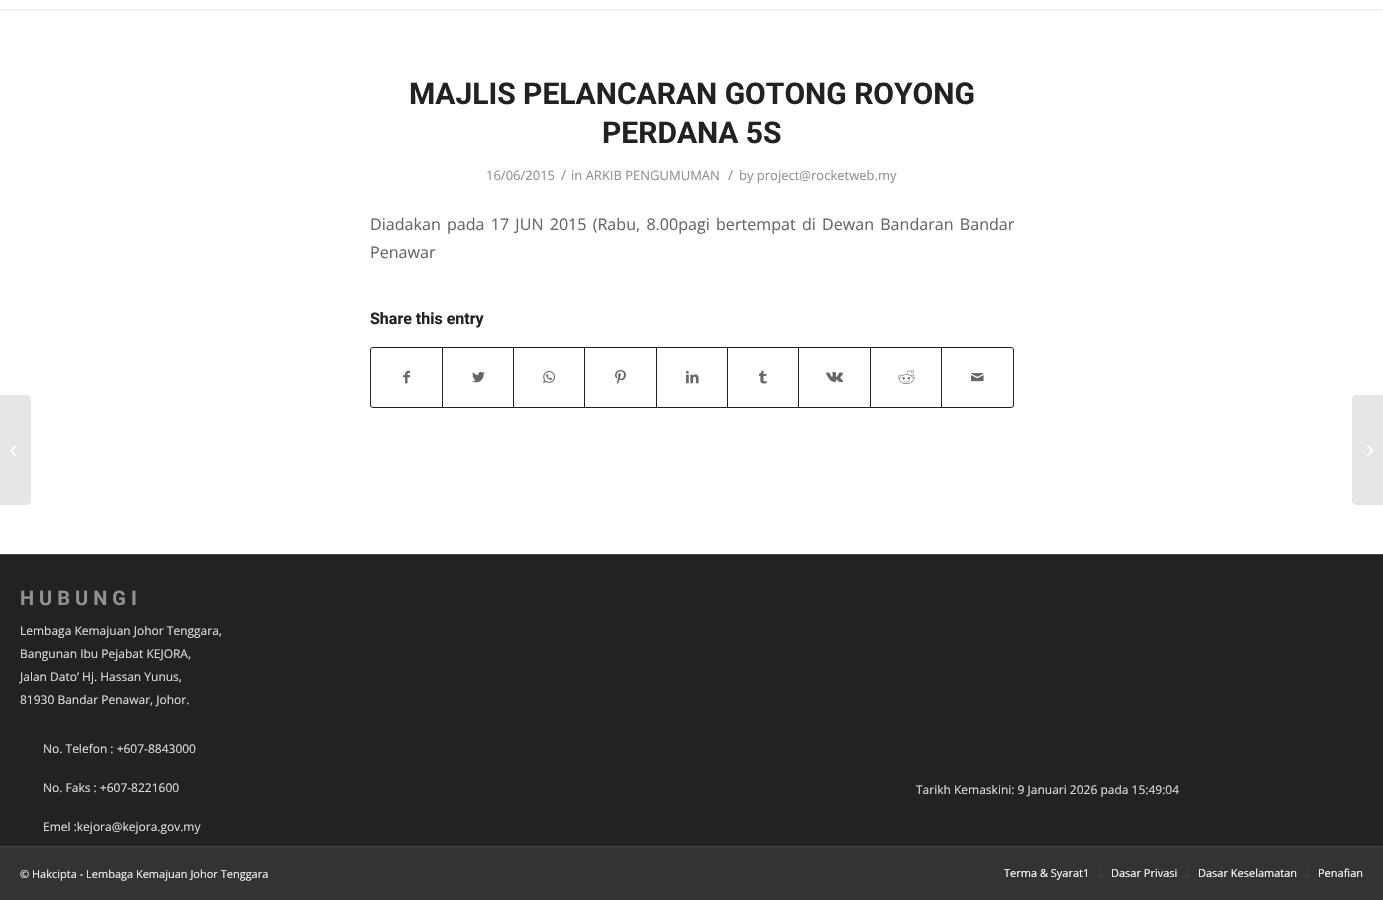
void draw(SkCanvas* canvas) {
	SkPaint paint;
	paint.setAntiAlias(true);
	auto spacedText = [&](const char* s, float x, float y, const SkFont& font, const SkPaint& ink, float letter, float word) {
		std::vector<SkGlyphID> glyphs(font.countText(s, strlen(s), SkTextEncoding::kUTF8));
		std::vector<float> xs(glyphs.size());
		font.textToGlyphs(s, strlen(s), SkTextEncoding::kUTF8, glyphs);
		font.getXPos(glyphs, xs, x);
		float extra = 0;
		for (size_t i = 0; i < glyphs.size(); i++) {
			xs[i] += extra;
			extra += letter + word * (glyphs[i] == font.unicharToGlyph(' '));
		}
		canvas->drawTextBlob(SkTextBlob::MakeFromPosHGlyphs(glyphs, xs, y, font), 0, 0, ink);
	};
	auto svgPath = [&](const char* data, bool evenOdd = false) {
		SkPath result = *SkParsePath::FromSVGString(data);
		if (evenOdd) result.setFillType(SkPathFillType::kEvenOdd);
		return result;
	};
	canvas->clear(0xffffffff);
	paint.setColor(0x1a000000);
	paint.setMaskFilter(SkMaskFilter::MakeBlur(kNormal_SkBlurStyle, 1));
	canvas->drawRect(SkRect::MakeXYWH(-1, -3, 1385, 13), paint);
	paint.setMaskFilter(nullptr);
	paint.setColor(0xffffffff);
	canvas->drawRect(SkRect::MakeXYWH(0, 0, 1383, 9), paint);
	paint.setColor(0xffe6e6e6);
	canvas->drawPath(svgPath("M0 395H27C29 395 31 397 31 399V501C31 503 29 505 27 505H0Z"), paint);
	canvas->drawImageRect(SkImages::DeferredFromEncodedData(SkData::MakeFromFileName("img1.png")), SkRect::MakeXYWH(10, 445, 7, 11), SkSamplingOptions());
	SkFont f1(fontMgr->matchFamilyStyle("Roboto", SkFontStyle::Bold()), 30);
	f1.setSubpixel(true);
	paint.setColor(0xff222222);
	canvas->drawString("MAJLIS PELANCARAN GOTONG ROYONG", 409, 104, f1, paint);
	canvas->drawString("PERDANA 5S", 602, 143, f1, paint);
	SkFont f2(fontMgr->matchFamilyStyle("Open Sans", SkFontStyle::Normal()), 13);
	f2.setSubpixel(true);
	paint.setColor(0xff919191);
	canvas->drawString("16/06/2015", 486, 180, f2, paint);
	SkFont f3(fontMgr->matchFamilyStyle("Open Sans", SkFontStyle::Normal()), 14);
	f3.setSubpixel(true);
	canvas->drawString("/", 561, 180, f3, paint);
	canvas->drawString("in ARKIB PENGUMUMAN", 571, 180, f2, paint);
	canvas->drawString("/", 728, 180, f3, paint);
	canvas->drawString("by project@rocketweb.my", 739, 180, f2, paint);
	SkFont f4(fontMgr->matchFamilyStyle("Open Sans", SkFontStyle::Normal()), 16.1);
	f4.setSubpixel(true);
	paint.setColor(0xff666666);
	spacedText("Diadakan pada 17 JUN 2015 (Rabu, 8.00pagi bertempat di Dewan Bandaran Bandar", 370, 230, f4, paint, 0, 2);
	canvas->drawString("Penawar", 370, 258, f4, paint);
	SkFont f5(fontMgr->matchFamilyStyle("Roboto", SkFontStyle::Bold()), 16);
	f5.setSubpixel(true);
	paint.setColor(0xff222222);
	canvas->drawString("Share this entry", 370, 324, f5, paint);
	paint.setStroke(true);
	paint.setStrokeWidth(1);
	canvas->drawRoundRect(SkRect::MakeXYWH(370.5, 347.5, 643, 60), 2.5, 2.5, paint);
	canvas->drawImageRect(SkImages::DeferredFromEncodedData(SkData::MakeFromFileName("img2.png")), SkRect::MakeXYWH(403, 370, 7, 14), SkSamplingOptions());
	paint.setStroke(false);
	canvas->drawRect(SkRect::MakeXYWH(442, 348, 1, 59), paint);
	canvas->drawImageRect(SkImages::DeferredFromEncodedData(SkData::MakeFromFileName("img3.png")), SkRect::MakeXYWH(472, 371, 13, 12), SkSamplingOptions());
	canvas->drawRect(SkRect::MakeXYWH(513, 348, 1, 59), paint);
	canvas->drawImageRect(SkImages::DeferredFromEncodedData(SkData::MakeFromFileName("img4.png")), SkRect::MakeXYWH(543, 371, 12, 13), SkSamplingOptions());
	canvas->drawRect(SkRect::MakeXYWH(584, 348, 1, 59), paint);
	canvas->drawImageRect(SkImages::DeferredFromEncodedData(SkData::MakeFromFileName("img5.png")), SkRect::MakeXYWH(615, 370, 11, 14), SkSamplingOptions());
	canvas->drawRect(SkRect::MakeXYWH(656, 348, 1, 59), paint);
	canvas->drawImageRect(SkImages::DeferredFromEncodedData(SkData::MakeFromFileName("img6.png")), SkRect::MakeXYWH(686, 370, 13, 14), SkSamplingOptions());
	canvas->drawRect(SkRect::MakeXYWH(727, 348, 1, 59), paint);
	canvas->drawImageRect(SkImages::DeferredFromEncodedData(SkData::MakeFromFileName("img7.png")), SkRect::MakeXYWH(759, 370, 8, 14), SkSamplingOptions());
	canvas->drawRect(SkRect::MakeXYWH(798, 348, 1, 59), paint);
	canvas->drawImageRect(SkImages::DeferredFromEncodedData(SkData::MakeFromFileName("img8.png")), SkRect::MakeXYWH(826, 372, 17, 10), SkSamplingOptions());
	canvas->drawRect(SkRect::MakeXYWH(870, 348, 1, 59), paint);
	canvas->drawImageRect(SkImages::DeferredFromEncodedData(SkData::MakeFromFileName("img9.png")), SkRect::MakeXYWH(898, 370, 17, 15), SkSamplingOptions());
	canvas->drawRect(SkRect::MakeXYWH(941, 348, 1, 59), paint);
	canvas->drawImageRect(SkImages::DeferredFromEncodedData(SkData::MakeFromFileName("img10.png")), SkRect::MakeXYWH(971, 373, 13, 9), SkSamplingOptions());
	canvas->drawRect(SkRect::MakeXYWH(0, 555, 1383, 291), paint);
	paint.setColor(0xff444444);
	canvas->drawRect(SkRect::MakeXYWH(0, 554, 1383, 1), paint);
	SkFont f6(fontMgr->matchFamilyStyle("Roboto", SkFontStyle::Bold()), 20);
	f6.setSubpixel(true);
	paint.setColor(0xff919191);
	spacedText("HUBUNGI", 20, 605, f6, paint, 5, 0);
	SkFont f7(fontMgr->matchFamilyStyle("Open Sans", SkFontStyle::Normal()), 12);
	f7.setSubpixel(true);
	paint.setColor(0xffdddddd);
	canvas->drawString("Lembaga Kemajuan Johor Tenggara,", 20, 635, f7, paint);
	canvas->drawString("Bangunan Ibu Pejabat KEJORA,", 20, 658, f7, paint);
	canvas->drawString("Jalan Dato’ Hj. Hassan Yunus,", 20, 681, f7, paint);
	canvas->drawString("81930 Bandar Penawar, Johor.", 20, 704, f7, paint);
	canvas->drawString("No. Telefon : +607-8843000", 43, 753, f7, paint);
	canvas->drawString("No. Faks : +607-8221600", 43, 792, f7, paint);
	canvas->drawString("Emel :kejora@kejora.gov.my", 43, 831, f7, paint);
	canvas->drawString("Tarikh Kemaskini: 9 Januari 2026 pada 15:49:04", 916, 794, f7, paint);
	paint.setColor(0xff333333);
	canvas->drawRect(SkRect::MakeXYWH(0, 847, 1383, 53), paint);
	paint.setColor(0xff444444);
	canvas->drawRect(SkRect::MakeXYWH(0, 846, 1383, 1), paint);
	SkFont f8(fontMgr->matchFamilyStyle("Open Sans", SkFontStyle::Normal()), 11);
	f8.setSubpixel(true);
	paint.setColor(0xffeeeeee);
	canvas->drawString("© Hakcipta - Lembaga Kemajuan Johor Tenggara", 20, 878, f8, paint);
	paint.setColor(0xffffffff);
	canvas->drawString("Terma & Syarat1", 1004, 877, f8, paint);
	paint.setColor(0xff444444);
	canvas->drawRect(SkRect::MakeXYWH(1100, 868, 1, 10), paint);
	paint.setColor(0xffffffff);
	canvas->drawString("Dasar Privasi", 1111, 877, f8, paint);
	paint.setColor(0xff444444);
	canvas->drawRect(SkRect::MakeXYWH(1187, 868, 1, 10), paint);
	paint.setColor(0xffffffff);
	canvas->drawString("Dasar Keselamatan", 1198, 877, f8, paint);
	paint.setColor(0xff444444);
	canvas->drawRect(SkRect::MakeXYWH(1307, 868, 1, 10), paint);
	paint.setColor(0xffffffff);
	canvas->drawString("Penafian", 1318, 877, f8, paint);
	paint.setColor(0xffe6e6e6);
	canvas->drawPath(svgPath("M1356 395H1383V505H1356C1354 505 1352 503 1352 501V399C1352 397 1354 395 1356 395Z"), paint);
	canvas->drawImageRect(SkImages::DeferredFromEncodedData(SkData::MakeFromFileName("img11.png")), SkRect::MakeXYWH(1367, 445, 7, 11), SkSamplingOptions());
}
